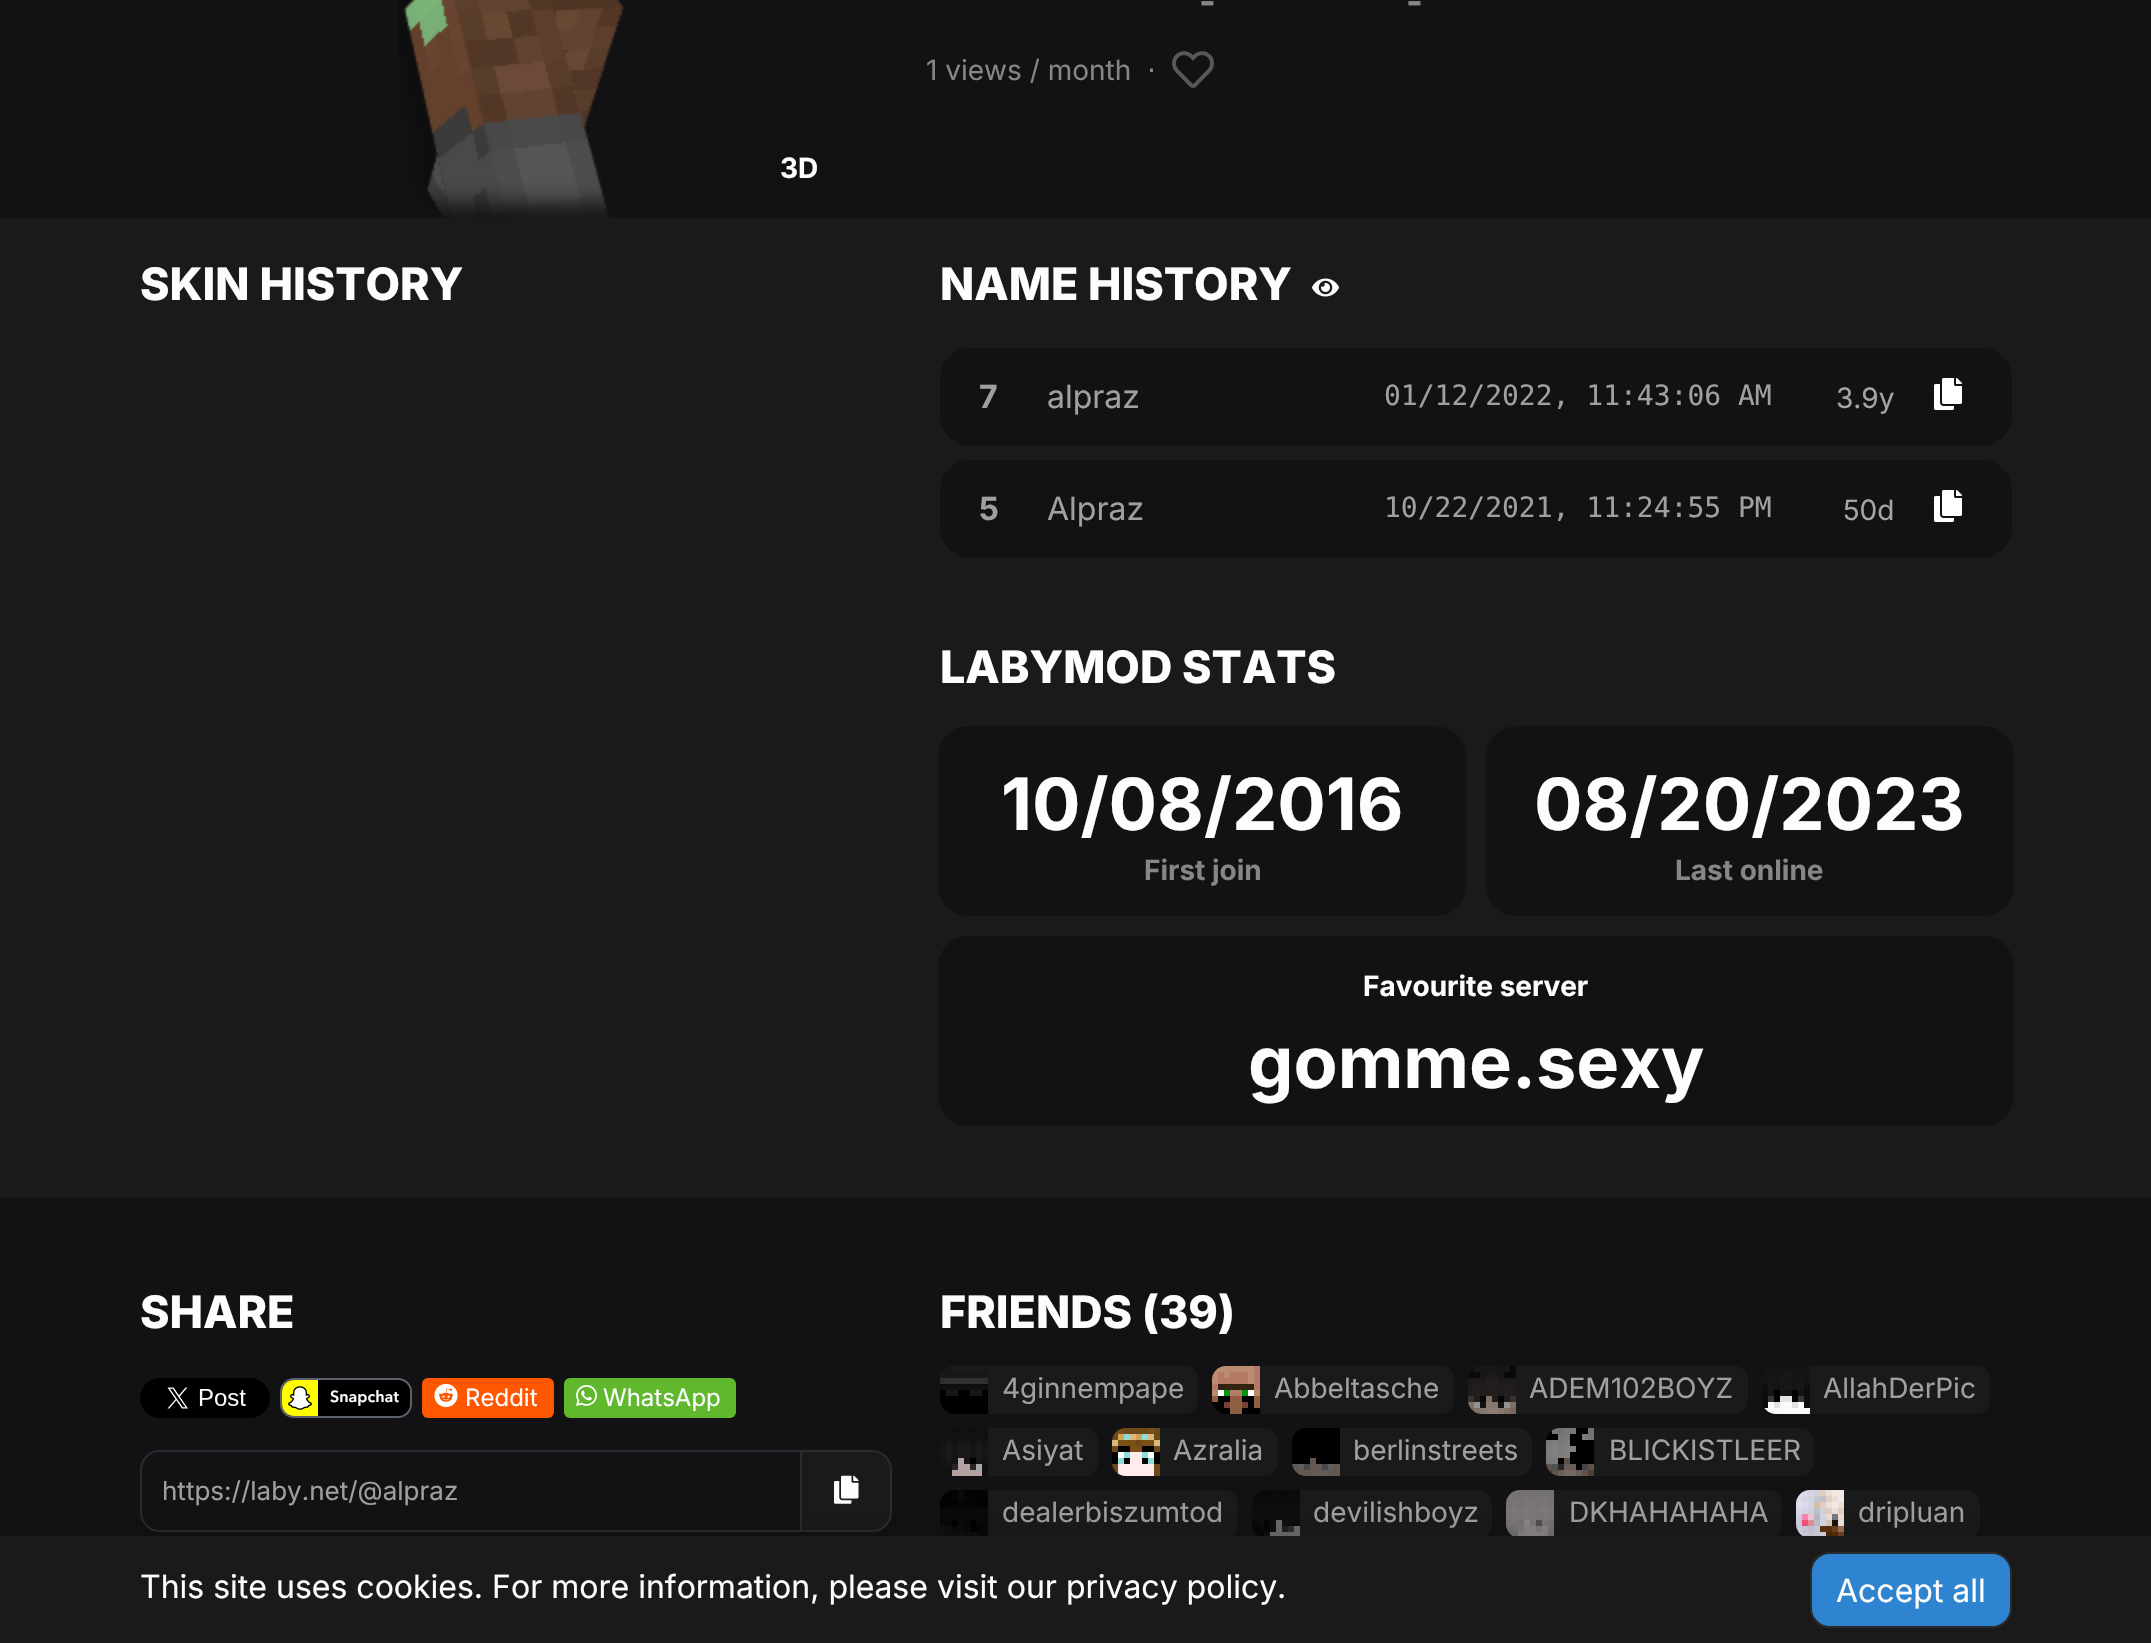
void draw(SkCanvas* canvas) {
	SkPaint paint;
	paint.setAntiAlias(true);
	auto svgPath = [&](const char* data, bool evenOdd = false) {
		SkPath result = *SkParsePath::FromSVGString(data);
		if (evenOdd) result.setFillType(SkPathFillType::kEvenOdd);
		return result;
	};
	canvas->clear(0xff121214);
	canvas->drawImageRect(SkImages::DeferredFromEncodedData(SkData::MakeFromFileName("img1.png")), SkRect::MakeXYWH(398, 0, 227, 218), SkSamplingOptions());
	SkFont f1(fontMgr->matchFamilyStyle("Inter", SkFontStyle::Bold()), 36);
	f1.setSubpixel(true);
	paint.setColor(0xff868686);
	canvas->drawString("-", 1199, 14, f1, paint);
	canvas->drawString("-", 1406, 14, f1, paint);
	SkFont f2(fontMgr->matchFamilyStyle("Inter", SkFontStyle::Normal()), 28);
	f2.setSubpixel(true);
	canvas->drawString("1 views / month", 926, 80, f2, paint);
	SkFont f3(fontMgr->matchFamilyStyle("DejaVu Sans", SkFontStyle::Normal()), 28);
	f3.setSubpixel(true);
	canvas->drawString("⋅", 1147, 80, f3, paint);
	canvas->drawImageRect(SkImages::DeferredFromEncodedData(SkData::MakeFromFileName("img2.png")), SkRect::MakeXYWH(1172, 51, 42, 37), SkSamplingOptions());
	SkFont f4(fontMgr->matchFamilyStyle("Inter", SkFontStyle::Bold()), 28);
	f4.setSubpixel(true);
	paint.setColor(0xfffdfdfd);
	canvas->drawString("3D", 780, 178, f4, paint);
	paint.setColor(0xff121214);
	paint.setMaskFilter(SkMaskFilter::MakeBlur(kNormal_SkBlurStyle, 11));
	canvas->drawRect(SkRect::MakeXYWH(0, 204, 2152, 980), paint);
	paint.setMaskFilter(nullptr);
	paint.setColor(0xff191b1b);
	canvas->drawRect(SkRect::MakeXYWH(0, 218, 2151, 980), paint);
	SkFont f5(fontMgr->matchFamilyStyle("Inter", SkFontStyle(800, SkFontStyle::kNormal_Width, SkFontStyle::kUpright_Slant)), 44.75);
	f5.setSubpixel(true);
	paint.setColor(0xfffdfdfd);
	canvas->drawString("SKIN HISTORY", 140, 300, f5, paint);
	canvas->drawString("NAME HISTORY", 940, 300, f5, paint);
	canvas->drawImageRect(SkImages::DeferredFromEncodedData(SkData::MakeFromFileName("img3.png")), SkRect::MakeXYWH(1312, 278, 27, 19), SkSamplingOptions());
	paint.setColor(0xff121214);
	canvas->drawPath(svgPath("M970 348H1028V446H970C953.5 446 940 432.5 940 416V378C940 361.5 953.5 348 970 348Z"), paint);
	SkFont f6(fontMgr->matchFamilyStyle("Inter", SkFontStyle::Bold()), 32);
	f6.setSubpixel(true);
	paint.setColor(0xff9fa1a1);
	canvas->drawString("7", 979, 408, f6, paint);
	paint.setColor(0xff121214);
	canvas->drawRect(SkRect::MakeXYWH(1028, 348, 886, 98), paint);
	SkFont f7(fontMgr->matchFamilyStyle("Inter", SkFontStyle::Normal()), 32);
	f7.setSubpixel(true);
	paint.setColor(0xff9fa1a1);
	canvas->drawString("alpraz", 1047, 408, f7, paint);
	SkFont f8(fontMgr->matchFamilyStyle("DejaVu Sans Mono", SkFontStyle::Normal()), 28);
	f8.setSubpixel(true);
	canvas->drawString("01/12/2022, 11:43:06 AM", 1384, 405, f8, paint);
	paint.setColor(0xffa4a5a7);
	canvas->drawString("3.9y", 1836, 408, f2, paint);
	paint.setColor(0xff121214);
	canvas->drawPath(svgPath("M1914 348H1982C1998.5 348 2012 361.5 2012 378V416C2012 432.5 1998.5 446 1982 446H1914Z"), paint);
	canvas->drawImageRect(SkImages::DeferredFromEncodedData(SkData::MakeFromFileName("img4.png")), SkRect::MakeXYWH(1934, 378, 28, 32), SkSamplingOptions());
	canvas->drawPath(svgPath("M970 460H1028V558H970C953.5 558 940 544.5 940 528V490C940 473.5 953.5 460 970 460Z"), paint);
	paint.setColor(0xff9fa1a1);
	canvas->drawString("5", 979, 520, f6, paint);
	paint.setColor(0xff121214);
	canvas->drawRect(SkRect::MakeXYWH(1028, 460, 886, 98), paint);
	paint.setColor(0xff9fa1a1);
	canvas->drawString("Alpraz", 1047, 520, f7, paint);
	canvas->drawString("10/22/2021, 11:24:55 PM", 1384, 517, f8, paint);
	paint.setColor(0xffa4a5a7);
	canvas->drawString("50d", 1843, 520, f2, paint);
	paint.setColor(0xff121214);
	canvas->drawPath(svgPath("M1914 460H1982C1998.5 460 2012 473.5 2012 490V528C2012 544.5 1998.5 558 1982 558H1914Z"), paint);
	canvas->drawImageRect(SkImages::DeferredFromEncodedData(SkData::MakeFromFileName("img4.png")), SkRect::MakeXYWH(1934, 490, 28, 32), SkSamplingOptions());
	paint.setColor(0xfffdfdfd);
	canvas->drawString("LABYMOD STATS", 940, 683, f5, paint);
	paint.setColor(0xff121214);
	canvas->drawRoundRect(SkRect::MakeXYWH(938, 726, 528, 190), 30, 30, paint);
	SkFont f9(fontMgr->matchFamilyStyle("Inter", SkFontStyle::Bold()), 72);
	f9.setSubpixel(true);
	paint.setColor(0xfffdfdfd);
	canvas->drawString("10/08/2016", 1001, 830, f9, paint);
	paint.setColor(0xff868686);
	canvas->drawString("First join", 1144, 880, f4, paint);
	paint.setColor(0xff121214);
	canvas->drawRoundRect(SkRect::MakeXYWH(1486, 726, 528, 190), 30, 30, paint);
	paint.setColor(0xfffdfdfd);
	canvas->drawString("08/20/2023", 1534, 830, f9, paint);
	paint.setColor(0xff868686);
	canvas->drawString("Last online", 1675, 880, f4, paint);
	paint.setColor(0xff121214);
	canvas->drawRoundRect(SkRect::MakeXYWH(938, 936, 1076, 190), 30, 30, paint);
	paint.setColor(0xfffdfdfd);
	canvas->drawString("Favourite server", 1363, 996, f4, paint);
	canvas->drawString("gomme.sexy", 1248, 1088, f9, paint);
	canvas->drawString("SHARE", 140, 1328, f5, paint);
	canvas->drawImageRect(SkImages::DeferredFromEncodedData(SkData::MakeFromFileName("img5.png")), SkRect::MakeXYWH(140, 1378, 130, 40), SkSamplingOptions());
	paint.setColor(0xff000000);
	canvas->drawRoundRect(SkRect::MakeXYWH(280, 1378, 132, 40), 14, 14, paint);
	paint.setStroke(true);
	paint.setStrokeWidth(2);
	paint.setColor(0xe6656d78);
	canvas->drawRoundRect(SkRect::MakeXYWH(281, 1379, 130, 38), 13, 13, paint);
	paint.setStroke(false);
	paint.setColor(0xfffffc00);
	canvas->drawPath(svgPath("M294 1380H318V1416H294C287.5 1416 282 1410.5 282 1404V1392C282 1385.5 287.5 1380 294 1380Z"), paint);
	canvas->drawImageRect(SkImages::DeferredFromEncodedData(SkData::MakeFromFileName("img6.png")), SkRect::MakeXYWH(288, 1386, 24, 24), SkSamplingOptions());
	canvas->save();
	canvas->clipPath(svgPath("M294 1380H398C404.5 1380 410 1385.5 410 1392V1404C410 1410.5 404.5 1416 398 1416H294C287.5 1416 282 1410.5 282 1404V1392C282 1385.5 287.5 1380 294 1380Z"), true);
	paint.setColor(0xff000000);
	canvas->drawRect(SkRect::MakeXYWH(318, 1386, 92, 24), paint);
	canvas->restore();
	SkFont f10(fontMgr->matchFamilyStyle("Avenir Next", SkFontStyle(600, SkFontStyle::kNormal_Width, SkFontStyle::kUpright_Slant)), 16);
	f10.setSubpixel(true);
	paint.setColor(0xfffdfdfd);
	canvas->drawString("Snapchat", 330, 1402, f10, paint);
	paint.setColor(0xffff5600);
	canvas->drawRoundRect(SkRect::MakeXYWH(422, 1378, 132, 40), 6, 6, paint);
	canvas->drawImageRect(SkImages::DeferredFromEncodedData(SkData::MakeFromFileName("img7.png")), SkRect::MakeXYWH(434, 1383, 24, 25), SkSamplingOptions());
	SkFont f11(fontMgr->matchFamilyStyle("Inter", SkFontStyle::Normal()), 24);
	f11.setSubpixel(true);
	paint.setColor(0xfffdfdfd);
	canvas->drawString("Reddit", 465, 1406, f11, paint);
	paint.setColor(0xff60b82d);
	canvas->drawRoundRect(SkRect::MakeXYWH(564, 1378, 172, 40), 6, 6, paint);
	canvas->drawImageRect(SkImages::DeferredFromEncodedData(SkData::MakeFromFileName("img8.png")), SkRect::MakeXYWH(576, 1385, 21, 21), SkSamplingOptions());
	paint.setColor(0xfffdfdfd);
	canvas->drawString("WhatsApp", 603, 1406, f11, paint);
	paint.setStroke(true);
	paint.setColor(0xff292b2f);
	canvas->drawPath(svgPath("M160 1451H801V1531H160C149.5 1531 141 1522.5 141 1512V1470C141 1459.5 149.5 1451 160 1451Z"), paint);
	SkFont f12(fontMgr->matchFamilyStyle("Inter", SkFontStyle::Normal()), 26);
	f12.setSubpixel(true);
	paint.setStroke(false);
	paint.setColor(0xff9fa1a1);
	canvas->drawString("https://laby.net/@alpraz", 162, 1500, f12, paint);
	paint.setColor(0xff191b1b);
	canvas->drawPath(svgPath("M801 1451H872C882.5 1451 891 1459.5 891 1470V1512C891 1522.5 882.5 1531 872 1531H801Z"), paint);
	paint.setStroke(true);
	paint.setColor(0xff292b2f);
	canvas->drawPath(svgPath("M801 1451H872C882.5 1451 891 1459.5 891 1470V1512C891 1522.5 882.5 1531 872 1531H801Z"), paint);
	canvas->drawImageRect(SkImages::DeferredFromEncodedData(SkData::MakeFromFileName("img9.png")), SkRect::MakeXYWH(834, 1475, 25, 29), SkSamplingOptions());
	paint.setStroke(false);
	paint.setColor(0xfffdfdfd);
	canvas->drawString("FRIENDS (39)", 940, 1328, f5, paint);
	paint.setColor(0xff191b1b);
	canvas->drawRoundRect(SkRect::MakeXYWH(940, 1366, 258, 48), 14, 14, paint);
	canvas->drawImageRect(SkImages::DeferredFromEncodedData(SkData::MakeFromFileName("img10.png")), SkRect::MakeXYWH(940, 1370, 48, 44), SkSamplingOptions());
	paint.setColor(0xff9fa1a1);
	canvas->drawString("4ginnempape", 1002, 1398, f2, paint);
	paint.setColor(0xff191b1b);
	canvas->drawRoundRect(SkRect::MakeXYWH(1212, 1366, 242, 48), 14, 14, paint);
	canvas->drawImageRect(SkImages::DeferredFromEncodedData(SkData::MakeFromFileName("img11.png")), SkRect::MakeXYWH(1212, 1366, 48, 48), SkSamplingOptions());
	paint.setColor(0xff9fa1a1);
	canvas->drawString("Abbeltasche", 1274, 1398, f2, paint);
	paint.setColor(0xff191b1b);
	canvas->drawRoundRect(SkRect::MakeXYWH(1468, 1366, 280, 48), 14, 14, paint);
	canvas->drawImageRect(SkImages::DeferredFromEncodedData(SkData::MakeFromFileName("img12.png")), SkRect::MakeXYWH(1468, 1366, 48, 48), SkSamplingOptions());
	paint.setColor(0xff9fa1a1);
	canvas->drawString("ADEM102BOYZ", 1529, 1398, f2, paint);
	paint.setColor(0xff191b1b);
	canvas->drawRoundRect(SkRect::MakeXYWH(1762, 1366, 228, 48), 14, 14, paint);
	canvas->drawImageRect(SkImages::DeferredFromEncodedData(SkData::MakeFromFileName("img13.png")), SkRect::MakeXYWH(1762, 1366, 48, 48), SkSamplingOptions());
	paint.setColor(0xff9fa1a1);
	canvas->drawString("AllahDerPic", 1823, 1398, f2, paint);
	paint.setColor(0xff191b1b);
	canvas->drawRoundRect(SkRect::MakeXYWH(940, 1428, 158, 48), 14, 14, paint);
	canvas->drawImageRect(SkImages::DeferredFromEncodedData(SkData::MakeFromFileName("img14.png")), SkRect::MakeXYWH(940, 1428, 48, 48), SkSamplingOptions());
	paint.setColor(0xff9fa1a1);
	canvas->drawString("Asiyat", 1002, 1460, f2, paint);
	paint.setColor(0xff191b1b);
	canvas->drawRoundRect(SkRect::MakeXYWH(1112, 1428, 166, 48), 14, 14, paint);
	canvas->drawImageRect(SkImages::DeferredFromEncodedData(SkData::MakeFromFileName("img15.png")), SkRect::MakeXYWH(1112, 1428, 48, 48), SkSamplingOptions());
	paint.setColor(0xff9fa1a1);
	canvas->drawString("Azralia", 1173, 1460, f2, paint);
	paint.setColor(0xff191b1b);
	canvas->drawRoundRect(SkRect::MakeXYWH(1292, 1428, 240, 48), 14, 14, paint);
	canvas->drawImageRect(SkImages::DeferredFromEncodedData(SkData::MakeFromFileName("img16.png")), SkRect::MakeXYWH(1292, 1428, 48, 48), SkSamplingOptions());
	paint.setColor(0xff9fa1a1);
	canvas->drawString("berlinstreets", 1353, 1460, f2, paint);
	paint.setColor(0xff191b1b);
	canvas->drawRoundRect(SkRect::MakeXYWH(1546, 1428, 268, 48), 14, 14, paint);
	canvas->drawImageRect(SkImages::DeferredFromEncodedData(SkData::MakeFromFileName("img17.png")), SkRect::MakeXYWH(1546, 1428, 48, 48), SkSamplingOptions());
	paint.setColor(0xff9fa1a1);
	canvas->drawString("BLICKISTLEER", 1609, 1460, f2, paint);
	paint.setColor(0xff191b1b);
	canvas->drawRoundRect(SkRect::MakeXYWH(940, 1490, 298, 48), 14, 14, paint);
	canvas->drawImageRect(SkImages::DeferredFromEncodedData(SkData::MakeFromFileName("img18.png")), SkRect::MakeXYWH(940, 1490, 48, 46), SkSamplingOptions());
	paint.setColor(0xff9fa1a1);
	canvas->drawString("dealerbiszumtod", 1002, 1522, f2, paint);
	paint.setColor(0xff191b1b);
	canvas->drawRoundRect(SkRect::MakeXYWH(1252, 1490, 240, 48), 14, 14, paint);
	canvas->drawImageRect(SkImages::DeferredFromEncodedData(SkData::MakeFromFileName("img19.png")), SkRect::MakeXYWH(1252, 1490, 48, 46), SkSamplingOptions());
	paint.setColor(0xff9fa1a1);
	canvas->drawString("devilishboyz", 1313, 1522, f2, paint);
	paint.setColor(0xff191b1b);
	canvas->drawRoundRect(SkRect::MakeXYWH(1506, 1490, 276, 48), 14, 14, paint);
	canvas->drawImageRect(SkImages::DeferredFromEncodedData(SkData::MakeFromFileName("img20.png")), SkRect::MakeXYWH(1506, 1490, 48, 46), SkSamplingOptions());
	paint.setColor(0xff9fa1a1);
	canvas->drawString("DKHAHAHAHA", 1569, 1522, f2, paint);
	paint.setColor(0xff191b1b);
	canvas->drawRoundRect(SkRect::MakeXYWH(1796, 1490, 184, 48), 14, 14, paint);
	canvas->drawImageRect(SkImages::DeferredFromEncodedData(SkData::MakeFromFileName("img21.png")), SkRect::MakeXYWH(1796, 1490, 48, 46), SkSamplingOptions());
	paint.setColor(0xff9fa1a1);
	canvas->drawString("dripluan", 1858, 1522, f2, paint);
	paint.setColor(0x1a000000);
	paint.setMaskFilter(SkMaskFilter::MakeBlur(kNormal_SkBlurStyle, 12));
	canvas->drawRect(SkRect::MakeXYWH(0, 1526, 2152, 108), paint);
	paint.setMaskFilter(nullptr);
	paint.setColor(0xff1a1a1a);
	canvas->drawRect(SkRect::MakeXYWH(0, 1536, 2151, 107), paint);
	paint.setColor(0xfffdfdfd);
	canvas->drawString("This site uses cookies. For more information, please visit our", 140, 1598, f7, paint);
	canvas->drawString("privacy policy", 1066, 1598, f7, paint);
	canvas->drawString(".", 1277, 1598, f7, paint);
	paint.setColor(0xff2f84d1);
	canvas->drawRoundRect(SkRect::MakeXYWH(1811, 1553, 200, 74), 19, 19, paint);
	paint.setStroke(true);
	paint.setColor(0xff292b2f);
	canvas->drawRoundRect(SkRect::MakeXYWH(1811, 1553, 200, 74), 19, 19, paint);
	paint.setStroke(false);
	paint.setColor(0xfffdfdfd);
	canvas->drawString("Accept all", 1836, 1602, f7, paint);
}
